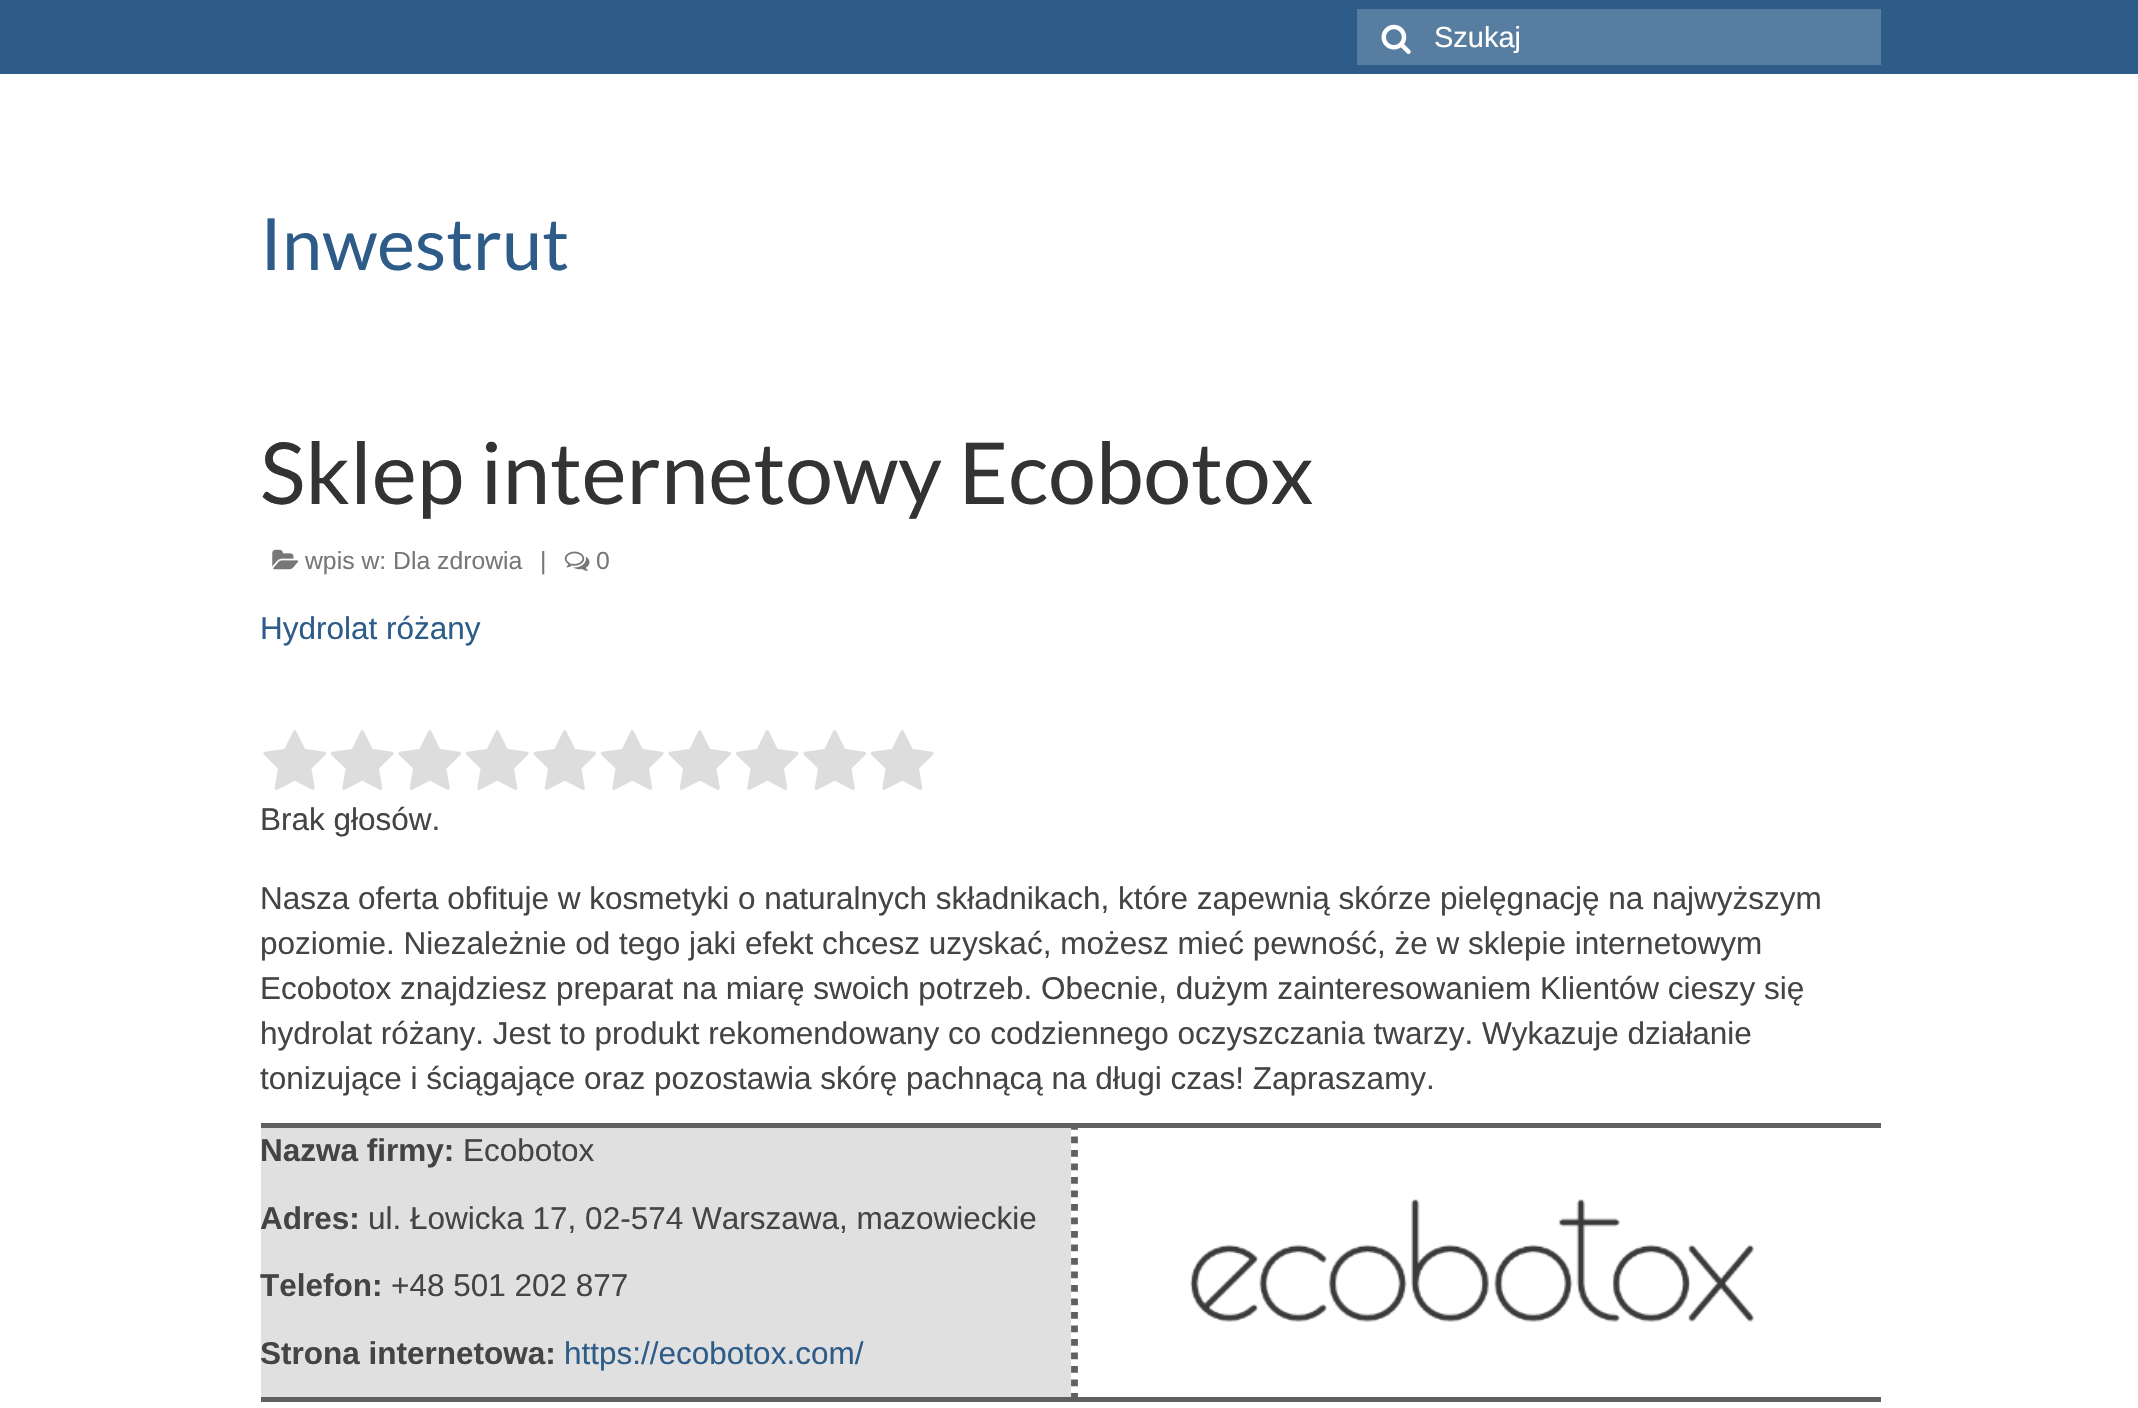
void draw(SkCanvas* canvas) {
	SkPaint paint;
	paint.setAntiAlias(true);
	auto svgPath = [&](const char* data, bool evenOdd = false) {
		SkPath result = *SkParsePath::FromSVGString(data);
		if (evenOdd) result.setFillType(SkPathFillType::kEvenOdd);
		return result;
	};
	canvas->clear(0xffffffff);
	paint.setColor(0xff2d5c88);
	canvas->drawRect(SkRect::MakeXYWH(0, 0, 2138, 74), paint);
	paint.setColor(0xff577da0);
	canvas->drawRect(SkRect::MakeXYWH(1357, 9, 524, 56), paint);
	canvas->drawImageRect(SkImages::DeferredFromEncodedData(SkData::MakeFromFileName("img1.png")), SkRect::MakeXYWH(1381, 24, 30, 30), SkSamplingOptions());
	SkFont f1(fontMgr->matchFamilyStyle("Liberation Sans", SkFontStyle::Normal()), 29);
	f1.setSubpixel(true);
	paint.setColor(0xffffffff);
	canvas->drawString("Szukaj", 1434, 47, f1, paint);
	SkFont f2(fontMgr->matchFamilyStyle("Lato", SkFontStyle::Normal()), 72);
	f2.setSubpixel(true);
	paint.setColor(0xff2d5c88);
	canvas->drawString("Inwestrut", 260, 270, f2, paint);
	SkFont f3(fontMgr->matchFamilyStyle("Lato", SkFontStyle::Normal()), 85.5);
	f3.setSubpixel(true);
	paint.setColor(0xff333333);
	canvas->drawString("Sklep internetowy Ecobotox", 260, 504, f3, paint);
	canvas->drawImageRect(SkImages::DeferredFromEncodedData(SkData::MakeFromFileName("img2.png")), SkRect::MakeXYWH(272, 549, 27, 21), SkSamplingOptions());
	SkFont f4(fontMgr->matchFamilyStyle("Liberation Sans", SkFontStyle::Normal()), 24.75);
	f4.setSubpixel(true);
	paint.setColor(0xff777777);
	canvas->drawString("wpis w: Dla zdrowia", 305, 569, f4, paint);
	canvas->drawString("|", 540, 569, f4, paint);
	canvas->drawImageRect(SkImages::DeferredFromEncodedData(SkData::MakeFromFileName("img3.png")), SkRect::MakeXYWH(564, 551, 26, 20), SkSamplingOptions());
	canvas->drawString("0", 596, 569, f4, paint);
	SkFont f5(fontMgr->matchFamilyStyle("Liberation Sans", SkFontStyle::Normal()), 31.5);
	f5.setSubpixel(true);
	paint.setColor(0xff2d5c88);
	canvas->drawString("Hydrolat różany", 260, 639, f5, paint);
	canvas->drawImageRect(SkImages::DeferredFromEncodedData(SkData::MakeFromFileName("img4.png")), SkRect::MakeXYWH(263, 730, 671, 60), SkSamplingOptions());
	paint.setColor(0xff444444);
	canvas->drawString("Brak głosów.", 260, 830, f5, paint);
	canvas->drawString("Nasza oferta obfituje w kosmetyki o naturalnych składnikach, które zapewnią skórze pielęgnację na najwyższym", 260, 909, f5, paint);
	canvas->drawString("poziomie. Niezależnie od tego jaki efekt chcesz uzyskać, możesz mieć pewność, że w sklepie internetowym", 260, 954, f5, paint);
	canvas->drawString("Ecobotox znajdziesz preparat na miarę swoich potrzeb. Obecnie, dużym zainteresowaniem Klientów cieszy się", 260, 999, f5, paint);
	canvas->drawString("hydrolat różany. Jest to produkt rekomendowany co codziennego oczyszczania twarzy. Wykazuje działanie", 260, 1044, f5, paint);
	canvas->drawString("tonizujące i ściągające oraz pozostawia skórę pachnącą na długi czas! Zapraszamy.", 260, 1089, f5, paint);
	paint.setColor(0xffe0e0e0);
	canvas->drawRect(SkRect::MakeXYWH(261, 1128, 810, 269), paint);
	paint.setColor(0xff606060);
	canvas->drawRect(SkRect::MakeXYWH(261, 1123, 1620, 5), paint);
	canvas->drawRect(SkRect::MakeXYWH(261, 1397, 1620, 5), paint);
	SkFont f6(fontMgr->matchFamilyStyle("Liberation Sans", SkFontStyle::Bold()), 31.5);
	f6.setSubpixel(true);
	paint.setColor(0xff444444);
	canvas->drawString("Nazwa firmy:", 260, 1161, f6, paint);
	canvas->drawString("Ecobotox", 463, 1161, f5, paint);
	canvas->drawString("Adres:", 260, 1229, f6, paint);
	canvas->drawString("ul. Łowicka 17, 02-574 Warszawa, mazowieckie", 368, 1229, f5, paint);
	canvas->drawString("Telefon:", 260, 1296, f6, paint);
	canvas->drawString("+48 501 202 877", 391, 1296, f5, paint);
	canvas->drawString("Strona internetowa:", 260, 1364, f6, paint);
	paint.setColor(0xff2d5c88);
	canvas->drawString("https://ecobotox.com/", 564, 1364, f5, paint);
	paint.setStroke(true);
	paint.setStrokeWidth(6.8);
	paint.setColor(0xff606060);
	paint.setPathEffect(SkDashPathEffect::Make({{6.75f, 6.75f}}, 0));
	canvas->drawPath(svgPath("M1074.5 1123V1402"), paint);
	paint.setPathEffect(nullptr);
	canvas->drawImageRect(SkImages::DeferredFromEncodedData(SkData::MakeFromFileName("img5.png")), SkRect::MakeXYWH(1190, 1199, 564, 123), SkSamplingOptions());
}
